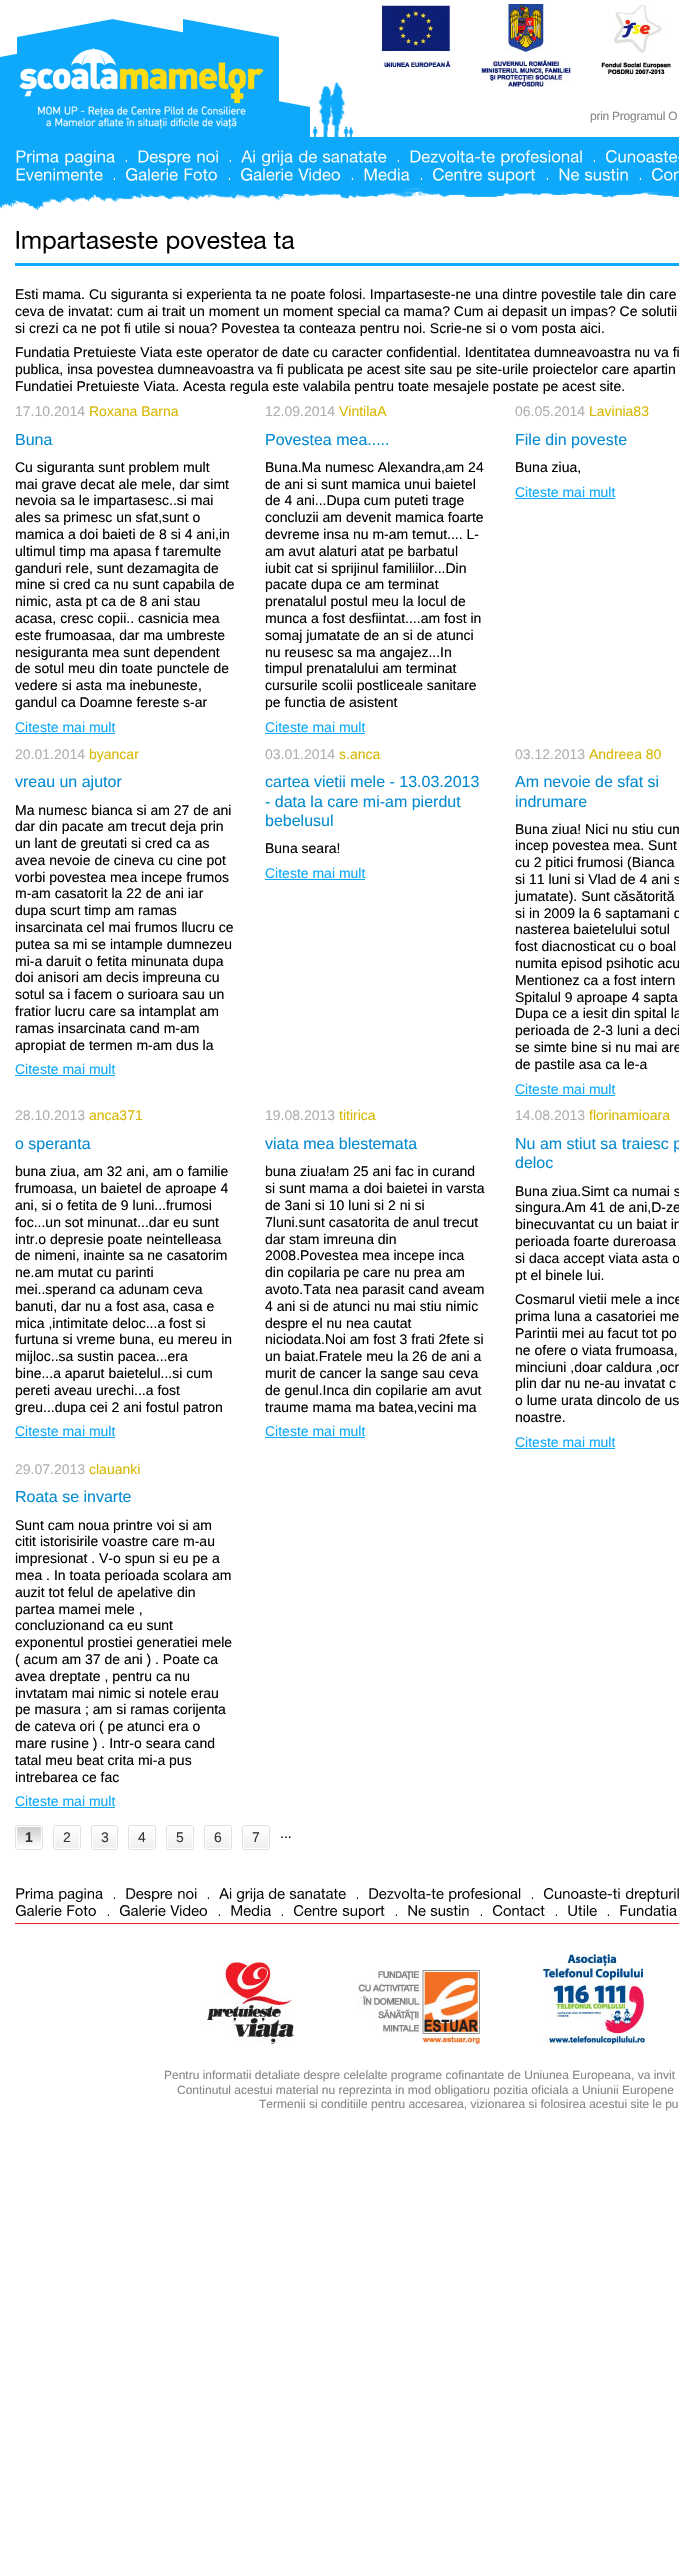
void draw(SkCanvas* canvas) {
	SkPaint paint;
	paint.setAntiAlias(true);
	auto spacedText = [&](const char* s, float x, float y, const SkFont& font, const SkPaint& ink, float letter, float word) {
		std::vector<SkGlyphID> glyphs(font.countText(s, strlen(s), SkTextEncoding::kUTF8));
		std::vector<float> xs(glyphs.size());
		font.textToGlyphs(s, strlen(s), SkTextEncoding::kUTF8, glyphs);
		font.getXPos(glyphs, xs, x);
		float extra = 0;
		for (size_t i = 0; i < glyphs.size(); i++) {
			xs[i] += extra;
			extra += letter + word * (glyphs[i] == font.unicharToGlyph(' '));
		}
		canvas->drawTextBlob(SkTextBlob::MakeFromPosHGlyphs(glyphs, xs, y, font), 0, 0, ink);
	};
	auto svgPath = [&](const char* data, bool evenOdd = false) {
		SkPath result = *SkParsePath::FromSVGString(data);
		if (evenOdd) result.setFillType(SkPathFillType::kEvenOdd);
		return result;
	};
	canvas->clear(0xffffffff);
	canvas->drawImageRect(SkImages::DeferredFromEncodedData(SkData::MakeFromFileName("img1.png")), SkRect::MakeXYWH(0, 211, 679, 9), SkSamplingOptions());
	canvas->drawImageRect(SkImages::DeferredFromEncodedData(SkData::MakeFromFileName("img2.png")), SkRect::MakeXYWH(0, 19, 679, 192), SkSamplingOptions());
	canvas->drawImageRect(SkImages::DeferredFromEncodedData(SkData::MakeFromFileName("img3.png")), SkRect::MakeXYWH(19, 48, 245, 81), SkSamplingOptions());
	canvas->drawImageRect(SkImages::DeferredFromEncodedData(SkData::MakeFromFileName("img4.png")), SkRect::MakeXYWH(380, 4, 71, 63), SkSamplingOptions());
	canvas->drawImageRect(SkImages::DeferredFromEncodedData(SkData::MakeFromFileName("img5.png")), SkRect::MakeXYWH(481, 4, 90, 83), SkSamplingOptions());
	canvas->drawImageRect(SkImages::DeferredFromEncodedData(SkData::MakeFromFileName("img6.png")), SkRect::MakeXYWH(601, 4, 70, 70), SkSamplingOptions());
	SkFont f1(fontMgr->matchFamilyStyle("Liberation Sans", SkFontStyle::Normal()), 12);
	f1.setSubpixel(true);
	paint.setColor(0xff868686);
	spacedText("prin Programul O", 590, 120, f1, paint, -0.25, 0);
	canvas->drawImageRect(SkImages::DeferredFromEncodedData(SkData::MakeFromFileName("img7.png")), SkRect::MakeXYWH(125, 159, 2, 3), SkSamplingOptions());
	canvas->drawImageRect(SkImages::DeferredFromEncodedData(SkData::MakeFromFileName("img8.png")), SkRect::MakeXYWH(16, 150, 43, 13), SkSamplingOptions());
	canvas->drawImageRect(SkImages::DeferredFromEncodedData(SkData::MakeFromFileName("img9.png")), SkRect::MakeXYWH(65, 150, 50, 16), SkSamplingOptions());
	canvas->drawImageRect(SkImages::DeferredFromEncodedData(SkData::MakeFromFileName("img7.png")), SkRect::MakeXYWH(229, 159, 2, 3), SkSamplingOptions());
	canvas->drawImageRect(SkImages::DeferredFromEncodedData(SkData::MakeFromFileName("img10.png")), SkRect::MakeXYWH(138, 150, 53, 16), SkSamplingOptions());
	canvas->drawImageRect(SkImages::DeferredFromEncodedData(SkData::MakeFromFileName("img11.png")), SkRect::MakeXYWH(197, 150, 21, 13), SkSamplingOptions());
	canvas->drawImageRect(SkImages::DeferredFromEncodedData(SkData::MakeFromFileName("img7.png")), SkRect::MakeXYWH(397, 159, 2, 3), SkSamplingOptions());
	canvas->drawImageRect(SkImages::DeferredFromEncodedData(SkData::MakeFromFileName("img12.png")), SkRect::MakeXYWH(241, 150, 14, 13), SkSamplingOptions());
	canvas->drawImageRect(SkImages::DeferredFromEncodedData(SkData::MakeFromFileName("img13.png")), SkRect::MakeXYWH(261, 150, 32, 16), SkSamplingOptions());
	canvas->drawImageRect(SkImages::DeferredFromEncodedData(SkData::MakeFromFileName("img14.png")), SkRect::MakeXYWH(299, 150, 18, 13), SkSamplingOptions());
	canvas->drawImageRect(SkImages::DeferredFromEncodedData(SkData::MakeFromFileName("img15.png")), SkRect::MakeXYWH(322, 151, 65, 12), SkSamplingOptions());
	canvas->drawImageRect(SkImages::DeferredFromEncodedData(SkData::MakeFromFileName("img7.png")), SkRect::MakeXYWH(593, 159, 2, 3), SkSamplingOptions());
	canvas->drawImageRect(SkImages::DeferredFromEncodedData(SkData::MakeFromFileName("img16.png")), SkRect::MakeXYWH(410, 150, 85, 13), SkSamplingOptions());
	canvas->drawImageRect(SkImages::DeferredFromEncodedData(SkData::MakeFromFileName("img17.png")), SkRect::MakeXYWH(501, 150, 81, 16), SkSamplingOptions());
	canvas->drawImageRect(SkImages::DeferredFromEncodedData(SkData::MakeFromFileName("img18.png")), SkRect::MakeXYWH(606, 150, 73, 13), SkSamplingOptions());
	canvas->drawImageRect(SkImages::DeferredFromEncodedData(SkData::MakeFromFileName("img7.png")), SkRect::MakeXYWH(113, 177, 2, 3), SkSamplingOptions());
	canvas->drawImageRect(SkImages::DeferredFromEncodedData(SkData::MakeFromFileName("img19.png")), SkRect::MakeXYWH(16, 168, 87, 13), SkSamplingOptions());
	canvas->drawImageRect(SkImages::DeferredFromEncodedData(SkData::MakeFromFileName("img7.png")), SkRect::MakeXYWH(228, 177, 2, 3), SkSamplingOptions());
	canvas->drawImageRect(SkImages::DeferredFromEncodedData(SkData::MakeFromFileName("img20.png")), SkRect::MakeXYWH(126, 168, 52, 13), SkSamplingOptions());
	canvas->drawImageRect(SkImages::DeferredFromEncodedData(SkData::MakeFromFileName("img21.png")), SkRect::MakeXYWH(184, 168, 33, 13), SkSamplingOptions());
	canvas->drawImageRect(SkImages::DeferredFromEncodedData(SkData::MakeFromFileName("img7.png")), SkRect::MakeXYWH(351, 177, 2, 3), SkSamplingOptions());
	canvas->drawImageRect(SkImages::DeferredFromEncodedData(SkData::MakeFromFileName("img20.png")), SkRect::MakeXYWH(241, 168, 52, 13), SkSamplingOptions());
	canvas->drawImageRect(SkImages::DeferredFromEncodedData(SkData::MakeFromFileName("img22.png")), SkRect::MakeXYWH(298, 168, 42, 13), SkSamplingOptions());
	canvas->drawImageRect(SkImages::DeferredFromEncodedData(SkData::MakeFromFileName("img7.png")), SkRect::MakeXYWH(420, 177, 2, 3), SkSamplingOptions());
	canvas->drawImageRect(SkImages::DeferredFromEncodedData(SkData::MakeFromFileName("img23.png")), SkRect::MakeXYWH(364, 168, 46, 13), SkSamplingOptions());
	canvas->drawImageRect(SkImages::DeferredFromEncodedData(SkData::MakeFromFileName("img7.png")), SkRect::MakeXYWH(546, 177, 2, 3), SkSamplingOptions());
	canvas->drawImageRect(SkImages::DeferredFromEncodedData(SkData::MakeFromFileName("img24.png")), SkRect::MakeXYWH(433, 168, 49, 13), SkSamplingOptions());
	canvas->drawImageRect(SkImages::DeferredFromEncodedData(SkData::MakeFromFileName("img25.png")), SkRect::MakeXYWH(487, 169, 49, 15), SkSamplingOptions());
	canvas->drawImageRect(SkImages::DeferredFromEncodedData(SkData::MakeFromFileName("img7.png")), SkRect::MakeXYWH(639, 177, 2, 3), SkSamplingOptions());
	canvas->drawImageRect(SkImages::DeferredFromEncodedData(SkData::MakeFromFileName("img26.png")), SkRect::MakeXYWH(559, 168, 21, 13), SkSamplingOptions());
	canvas->drawImageRect(SkImages::DeferredFromEncodedData(SkData::MakeFromFileName("img27.png")), SkRect::MakeXYWH(584, 168, 44, 13), SkSamplingOptions());
	canvas->drawImageRect(SkImages::DeferredFromEncodedData(SkData::MakeFromFileName("img28.png")), SkRect::MakeXYWH(652, 168, 27, 13), SkSamplingOptions());
	paint.setColor(0xff0ea9fa);
	canvas->drawRect(SkRect::MakeXYWH(15, 263, 664, 3), paint);
	canvas->drawImageRect(SkImages::DeferredFromEncodedData(SkData::MakeFromFileName("img29.png")), SkRect::MakeXYWH(16, 231, 142, 23), SkSamplingOptions());
	canvas->drawImageRect(SkImages::DeferredFromEncodedData(SkData::MakeFromFileName("img30.png")), SkRect::MakeXYWH(167, 232, 100, 22), SkSamplingOptions());
	canvas->drawImageRect(SkImages::DeferredFromEncodedData(SkData::MakeFromFileName("img31.png")), SkRect::MakeXYWH(273, 232, 22, 17), SkSamplingOptions());
	SkFont f2(fontMgr->matchFamilyStyle("Liberation Sans", SkFontStyle::Normal()), 14);
	f2.setSubpixel(true);
	paint.setColor(0xff000000);
	canvas->drawString("Esti mama. Cu siguranta si experienta ta ne poate folosi. Impartaseste-ne una dintre povestile tale din care", 15, 299, f2, paint);
	canvas->drawString("ceva de invatat: cum ai trait un moment un moment special ca mama? Cum ai depasit un impas? Ce solutii", 15, 316, f2, paint);
	canvas->drawString("si crezi ca ne pot fi utile si noua? Povestea ta conteaza pentru noi. Scrie-ne si o vom posta aici.", 15, 333, f2, paint);
	canvas->drawString("Fundatia Pretuieste Viata este operator de date cu caracter confidential. Identitatea dumneavoastra nu va fi", 15, 357, f2, paint);
	canvas->drawString("publica, insa povestea dumneavoastra va fi publicata pe acest site sau pe site-urile proiectelor care apartin", 15, 374, f2, paint);
	canvas->drawString("Fundatiei Pretuieste Viata. Acesta regula este valabila pentru toate mesajele postate pe acest site.", 15, 391, f2, paint);
	paint.setColor(0xffb0b0b0);
	canvas->drawString("17.10.2014", 15, 416, f2, paint);
	paint.setColor(0xffd8b803);
	canvas->drawString("Roxana Barna", 89, 416, f2, paint);
	SkFont f3(fontMgr->matchFamilyStyle("Liberation Sans", SkFontStyle::Normal()), 16);
	f3.setSubpixel(true);
	paint.setColor(0xff058bd1);
	canvas->drawString("Buna", 15, 445, f3, paint);
	paint.setColor(0xff000000);
	canvas->drawString("Cu siguranta sunt problem mult", 15, 472, f2, paint);
	canvas->drawString("mai grave decat ale mele, dar simt", 15, 489, f2, paint);
	canvas->drawString("nevoia sa le impartasesc..si mai", 15, 505, f2, paint);
	canvas->drawString("ales sa primesc un sfat,sunt o", 15, 522, f2, paint);
	canvas->drawString("mamica a doi baieti de 8 si 4 ani,in", 15, 539, f2, paint);
	canvas->drawString("ultimul timp ma apasa f taremulte", 15, 556, f2, paint);
	canvas->drawString("ganduri rele, sunt dezamagita de", 15, 573, f2, paint);
	canvas->drawString("mine si cred ca nu sunt capabila de", 15, 589, f2, paint);
	canvas->drawString("nimic, asta pt ca de 8 ani stau", 15, 606, f2, paint);
	canvas->drawString("acasa, cresc copii.. casnicia mea", 15, 623, f2, paint);
	canvas->drawString("este frumoasaa, dar ma umbreste", 15, 640, f2, paint);
	canvas->drawString("nesiguranta mea sunt dependent", 15, 657, f2, paint);
	canvas->drawString("de sotul meu din toate punctele de", 15, 673, f2, paint);
	canvas->drawString("vedere si asta ma inebuneste,", 15, 690, f2, paint);
	canvas->drawString("gandul ca Doamne fereste s-ar", 15, 707, f2, paint);
	paint.setColor(0xff0ea9fa);
	canvas->drawString("Citeste mai mult", 15, 732, f2, paint);
	canvas->drawRect(SkRect::MakeXYWH(15, 733, 100, 1), paint);
	paint.setColor(0xffb0b0b0);
	canvas->drawString("12.09.2014", 265, 416, f2, paint);
	paint.setColor(0xffd8b803);
	canvas->drawString("VintilaA", 339, 416, f2, paint);
	paint.setColor(0xff058bd1);
	canvas->drawString("Povestea mea.....", 265, 445, f3, paint);
	paint.setColor(0xff000000);
	canvas->drawString("Buna.Ma numesc Alexandra,am 24", 265, 472, f2, paint);
	canvas->drawString("de ani si sunt mamica unui baietel", 265, 489, f2, paint);
	canvas->drawString("de 4 ani...Dupa cum puteti trage", 265, 505, f2, paint);
	canvas->drawString("concluzii am devenit mamica foarte", 265, 522, f2, paint);
	canvas->drawString("devreme insa nu m-am temut.... L-", 265, 539, f2, paint);
	canvas->drawString("am avut alaturi atat pe barbatul", 265, 556, f2, paint);
	canvas->drawString("iubit cat si sprijinul familiilor...Din", 265, 573, f2, paint);
	canvas->drawString("pacate dupa ce am terminat", 265, 589, f2, paint);
	canvas->drawString("prenatalul postul meu la locul de", 265, 606, f2, paint);
	canvas->drawString("munca a fost desfiintat....am fost in", 265, 623, f2, paint);
	canvas->drawString("somaj jumatate de an si de atunci", 265, 640, f2, paint);
	canvas->drawString("nu reusesc sa ma angajez...In", 265, 657, f2, paint);
	canvas->drawString("timpul prenatalului am terminat", 265, 673, f2, paint);
	canvas->drawString("cursurile scolii postliceale sanitare", 265, 690, f2, paint);
	canvas->drawString("pe functia de asistent", 265, 707, f2, paint);
	paint.setColor(0xff0ea9fa);
	canvas->drawString("Citeste mai mult", 265, 732, f2, paint);
	canvas->drawRect(SkRect::MakeXYWH(265, 733, 100, 1), paint);
	paint.setColor(0xffb0b0b0);
	canvas->drawString("06.05.2014", 515, 416, f2, paint);
	paint.setColor(0xffd8b803);
	canvas->drawString("Lavinia83", 589, 416, f2, paint);
	paint.setColor(0xff058bd1);
	canvas->drawString("File din poveste", 515, 445, f3, paint);
	paint.setColor(0xff000000);
	canvas->drawString("Buna ziua,", 515, 472, f2, paint);
	paint.setColor(0xff0ea9fa);
	canvas->drawString("Citeste mai mult", 515, 497, f2, paint);
	canvas->drawRect(SkRect::MakeXYWH(515, 498, 100, 1), paint);
	paint.setColor(0xffb0b0b0);
	canvas->drawString("20.01.2014", 15, 759, f2, paint);
	paint.setColor(0xffd8b803);
	canvas->drawString("byancar", 89, 759, f2, paint);
	paint.setColor(0xff058bd1);
	canvas->drawString("vreau un ajutor", 15, 787, f3, paint);
	paint.setColor(0xff000000);
	canvas->drawString("Ma numesc bianca si am 27 de ani", 15, 815, f2, paint);
	canvas->drawString("dar din pacate am trecut deja prin", 15, 831, f2, paint);
	canvas->drawString("un lant de greutati si cred ca as", 15, 848, f2, paint);
	canvas->drawString("avea nevoie de cineva cu cine pot", 15, 865, f2, paint);
	canvas->drawString("vorbi povestea mea incepe frumos", 15, 882, f2, paint);
	canvas->drawString("m-am casatorit la 22 de ani iar", 15, 898, f2, paint);
	canvas->drawString("dupa scurt timp am ramas", 15, 915, f2, paint);
	canvas->drawString("insarcinata cel mai frumos llucru ce", 15, 932, f2, paint);
	canvas->drawString("putea sa mi se intample dumnezeu", 15, 949, f2, paint);
	canvas->drawString("mi-a daruit o fetita minunata dupa", 15, 966, f2, paint);
	canvas->drawString("doi anisori am decis impreuna cu", 15, 982, f2, paint);
	canvas->drawString("sotul sa i facem o surioara sau un", 15, 999, f2, paint);
	canvas->drawString("fratior lucru care sa intamplat am", 15, 1016, f2, paint);
	canvas->drawString("ramas insarcinata cand m-am", 15, 1033, f2, paint);
	canvas->drawString("apropiat de termen m-am dus la", 15, 1050, f2, paint);
	paint.setColor(0xff0ea9fa);
	canvas->drawString("Citeste mai mult", 15, 1074, f2, paint);
	canvas->drawRect(SkRect::MakeXYWH(15, 1075, 100, 1), paint);
	paint.setColor(0xffb0b0b0);
	canvas->drawString("03.01.2014", 265, 759, f2, paint);
	paint.setColor(0xffd8b803);
	canvas->drawString("s.anca", 339, 759, f2, paint);
	paint.setColor(0xff058bd1);
	canvas->drawString("cartea vietii mele - 13.03.2013", 265, 787, f3, paint);
	canvas->drawString("- data la care mi-am pierdut", 265, 807, f3, paint);
	canvas->drawString("bebelusul", 265, 826, f3, paint);
	paint.setColor(0xff000000);
	canvas->drawString("Buna seara!", 265, 853, f2, paint);
	paint.setColor(0xff0ea9fa);
	canvas->drawString("Citeste mai mult", 265, 878, f2, paint);
	canvas->drawRect(SkRect::MakeXYWH(265, 879, 100, 1), paint);
	paint.setColor(0xffb0b0b0);
	canvas->drawString("03.12.2013", 515, 759, f2, paint);
	paint.setColor(0xffd8b803);
	canvas->drawString("Andreea 80", 589, 759, f2, paint);
	paint.setColor(0xff058bd1);
	canvas->drawString("Am nevoie de sfat si", 515, 787, f3, paint);
	canvas->drawString("indrumare", 515, 807, f3, paint);
	paint.setColor(0xff000000);
	canvas->drawString("Buna ziua! Nici nu stiu cum", 515, 834, f2, paint);
	canvas->drawString("incep povestea mea. Sunt", 515, 850, f2, paint);
	canvas->drawString("cu 2 pitici frumosi (Bianca", 515, 867, f2, paint);
	canvas->drawString("si 11 luni si Vlad de 4 ani s", 515, 884, f2, paint);
	canvas->drawString("jumatate). Sunt căsătorită", 515, 901, f2, paint);
	canvas->drawString("si in 2009 la 6 saptamani d", 515, 918, f2, paint);
	canvas->drawString("nasterea baietelului sotul", 515, 934, f2, paint);
	canvas->drawString("fost diacnosticat cu o boal", 515, 951, f2, paint);
	canvas->drawString("numita episod psihotic acu", 515, 968, f2, paint);
	canvas->drawString("Mentionez ca a fost intern", 515, 985, f2, paint);
	canvas->drawString("Spitalul 9 aproape 4 sapta", 515, 1002, f2, paint);
	canvas->drawString("Dupa ce a iesit din spital la", 515, 1018, f2, paint);
	canvas->drawString("perioada de 2-3 luni a deci", 515, 1035, f2, paint);
	canvas->drawString("se simte bine si nu mai are", 515, 1052, f2, paint);
	canvas->drawString("de pastile asa ca le-a", 515, 1069, f2, paint);
	paint.setColor(0xff0ea9fa);
	canvas->drawString("Citeste mai mult", 515, 1094, f2, paint);
	canvas->drawRect(SkRect::MakeXYWH(515, 1095, 100, 1), paint);
	paint.setColor(0xffb0b0b0);
	canvas->drawString("28.10.2013", 15, 1120, f2, paint);
	paint.setColor(0xffd8b803);
	canvas->drawString("anca371", 89, 1120, f2, paint);
	paint.setColor(0xff058bd1);
	canvas->drawString("o speranta", 15, 1149, f3, paint);
	paint.setColor(0xff000000);
	canvas->drawString("buna ziua, am 32 ani, am o familie", 15, 1176, f2, paint);
	canvas->drawString("frumoasa, un baietel de aproape 4", 15, 1193, f2, paint);
	canvas->drawString("ani, si o fetita de 9 luni...frumosi", 15, 1210, f2, paint);
	canvas->drawString("foc...un sot minunat...dar eu sunt", 15, 1227, f2, paint);
	canvas->drawString("intr.o depresie poate neintelleasa", 15, 1244, f2, paint);
	canvas->drawString("de nimeni, inainte sa ne casatorim", 15, 1260, f2, paint);
	canvas->drawString("ne.am mutat cu parinti", 15, 1277, f2, paint);
	canvas->drawString("mei..sperand ca adunam ceva", 15, 1294, f2, paint);
	canvas->drawString("banuti, dar nu a fost asa, casa e", 15, 1311, f2, paint);
	canvas->drawString("mica ,intimitate deloc...a fost si", 15, 1328, f2, paint);
	canvas->drawString("furtuna si vreme buna, eu mereu in", 15, 1344, f2, paint);
	canvas->drawString("mijloc..sa sustin pacea...era", 15, 1361, f2, paint);
	canvas->drawString("bine...a aparut baietelul...si cum", 15, 1378, f2, paint);
	canvas->drawString("pereti aveau urechi...a fost", 15, 1395, f2, paint);
	canvas->drawString("greu...dupa cei 2 ani fostul patron", 15, 1412, f2, paint);
	paint.setColor(0xff0ea9fa);
	canvas->drawString("Citeste mai mult", 15, 1436, f2, paint);
	canvas->drawRect(SkRect::MakeXYWH(15, 1437, 100, 1), paint);
	paint.setColor(0xffb0b0b0);
	canvas->drawString("19.08.2013", 265, 1120, f2, paint);
	paint.setColor(0xffd8b803);
	canvas->drawString("titirica", 339, 1120, f2, paint);
	paint.setColor(0xff058bd1);
	canvas->drawString("viata mea blestemata", 265, 1149, f3, paint);
	paint.setColor(0xff000000);
	canvas->drawString("buna ziua!am 25 ani fac in curand", 265, 1176, f2, paint);
	canvas->drawString("si sunt mama a doi baietei in varsta", 265, 1193, f2, paint);
	canvas->drawString("de 3ani si 10 luni si 2 ni si", 265, 1210, f2, paint);
	canvas->drawString("7luni.sunt casatorita de anul trecut", 265, 1227, f2, paint);
	canvas->drawString("dar stam imreuna din", 265, 1244, f2, paint);
	canvas->drawString("2008.Povestea mea incepe inca", 265, 1260, f2, paint);
	canvas->drawString("din copilaria pe care nu prea am", 265, 1277, f2, paint);
	canvas->drawString("avoto.Tata nea parasit cand aveam", 265, 1294, f2, paint);
	canvas->drawString("4 ani si de atunci nu mai stiu nimic", 265, 1311, f2, paint);
	canvas->drawString("despre el nu nea cautat", 265, 1328, f2, paint);
	canvas->drawString("niciodata.Noi am fost 3 frati 2fete si", 265, 1344, f2, paint);
	canvas->drawString("un baiat.Fratele meu la 26 de ani a", 265, 1361, f2, paint);
	canvas->drawString("murit de cancer la sange sau ceva", 265, 1378, f2, paint);
	canvas->drawString("de genul.Inca din copilarie am avut", 265, 1395, f2, paint);
	canvas->drawString("traume mama ma batea,vecini ma", 265, 1412, f2, paint);
	paint.setColor(0xff0ea9fa);
	canvas->drawString("Citeste mai mult", 265, 1436, f2, paint);
	canvas->drawRect(SkRect::MakeXYWH(265, 1437, 100, 1), paint);
	paint.setColor(0xffb0b0b0);
	canvas->drawString("14.08.2013", 515, 1120, f2, paint);
	paint.setColor(0xffd8b803);
	canvas->drawString("florinamioara", 589, 1120, f2, paint);
	paint.setColor(0xff058bd1);
	canvas->drawString("Nu am stiut sa traiesc p", 515, 1149, f3, paint);
	canvas->drawString("deloc", 515, 1168, f3, paint);
	paint.setColor(0xff000000);
	canvas->drawString("Buna ziua.Simt ca numai s", 515, 1196, f2, paint);
	canvas->drawString("singura.Am 41 de ani,D-ze", 515, 1212, f2, paint);
	canvas->drawString("binecuvantat cu un baiat in", 515, 1229, f2, paint);
	canvas->drawString("perioada foarte dureroasa", 515, 1246, f2, paint);
	canvas->drawString("si daca accept viata asta o", 515, 1263, f2, paint);
	canvas->drawString("pt el binele lui.", 515, 1280, f2, paint);
	canvas->drawString("Cosmarul vietii mele a ince", 515, 1304, f2, paint);
	canvas->drawString("prima luna a casatoriei me", 515, 1321, f2, paint);
	canvas->drawString("Parintii mei au facut tot po", 515, 1338, f2, paint);
	canvas->drawString("ne ofere o viata frumoasa,", 515, 1355, f2, paint);
	canvas->drawString("minciuni ,doar caldura ,ocr", 515, 1372, f2, paint);
	canvas->drawString("plin dar nu ne-au invatat c", 515, 1388, f2, paint);
	canvas->drawString("o lume urata dincolo de us", 515, 1405, f2, paint);
	canvas->drawString("noastre.", 515, 1422, f2, paint);
	paint.setColor(0xff0ea9fa);
	canvas->drawString("Citeste mai mult", 515, 1447, f2, paint);
	canvas->drawRect(SkRect::MakeXYWH(515, 1448, 100, 1), paint);
	paint.setColor(0xffb0b0b0);
	canvas->drawString("29.07.2013", 15, 1474, f2, paint);
	paint.setColor(0xffd8b803);
	canvas->drawString("clauanki", 89, 1474, f2, paint);
	paint.setColor(0xff058bd1);
	canvas->drawString("Roata se invarte", 15, 1502, f3, paint);
	paint.setColor(0xff000000);
	canvas->drawString("Sunt cam noua printre voi si am", 15, 1530, f2, paint);
	canvas->drawString("citit istorisirile voastre care m-au", 15, 1546, f2, paint);
	canvas->drawString("impresionat . V-o spun si eu pe a", 15, 1563, f2, paint);
	canvas->drawString("mea . In toata perioada scolara am", 15, 1580, f2, paint);
	canvas->drawString("auzit tot felul de apelative din", 15, 1597, f2, paint);
	canvas->drawString("partea mamei mele ,", 15, 1614, f2, paint);
	canvas->drawString("concluzionand ca eu sunt", 15, 1630, f2, paint);
	canvas->drawString("exponentul prostiei generatiei mele", 15, 1647, f2, paint);
	canvas->drawString("( acum am 37 de ani ) . Poate ca", 15, 1664, f2, paint);
	canvas->drawString("avea dreptate , pentru ca nu", 15, 1681, f2, paint);
	canvas->drawString("invtatam mai nimic si notele erau", 15, 1698, f2, paint);
	canvas->drawString("pe masura ; am si ramas corijenta", 15, 1714, f2, paint);
	canvas->drawString("de cateva ori ( pe atunci era o", 15, 1731, f2, paint);
	canvas->drawString("mare rusine ) . Intr-o seara cand", 15, 1748, f2, paint);
	canvas->drawString("tatal meu beat crita mi-a pus", 15, 1765, f2, paint);
	canvas->drawString("intrebarea ce fac", 15, 1782, f2, paint);
	paint.setColor(0xff0ea9fa);
	canvas->drawString("Citeste mai mult", 15, 1806, f2, paint);
	canvas->drawRect(SkRect::MakeXYWH(15, 1807, 100, 1), paint);
	paint.setStroke(true);
	paint.setStrokeWidth(1);
	paint.setColor(0xffe1e1e1);
	canvas->drawRoundRect(SkRect::MakeXYWH(15.5, 1825.5, 27, 24), 2.5, 2.5, paint);
	canvas->save();
	canvas->clipPath(svgPath("M19 1826H39C40.5 1826 42 1827.5 42 1829V1846C42 1847.5 40.5 1849 39 1849H19C17.5 1849 16 1847.5 16 1846V1829C16 1827.5 17.5 1826 19 1826Z"), true);
	paint.setStroke(false);
	{
		const SkColor colors[] = {0xffcccccc, 0xffffffff};
		const float stops[] = {0, 1};
		const SkPoint ends[] = {{17, 1827}, {17, 1848}};
		paint.setShader(SkGradientShader::MakeLinear(ends, colors, stops, 2, SkTileMode::kClamp));
		paint.setAlpha(255);
	}
	canvas->drawRect(SkRect::MakeXYWH(16, 1827, 26, 21), paint);
	canvas->restore();
	paint.setStroke(true);
	paint.setShader(nullptr);
	paint.setColor(0xffffffff);
	canvas->drawRoundRect(SkRect::MakeXYWH(16.5, 1826.5, 25, 22), 2.5, 2.5, paint);
	SkFont f4(fontMgr->matchFamilyStyle("Liberation Sans", SkFontStyle::Bold()), 14);
	f4.setSubpixel(true);
	paint.setStroke(false);
	paint.setColor(0xff343434);
	canvas->drawString("1", 25, 1842, f4, paint);
	paint.setStroke(true);
	paint.setColor(0xffe1e1e1);
	canvas->drawRoundRect(SkRect::MakeXYWH(53.5, 1825.5, 27, 24), 2.5, 2.5, paint);
	canvas->save();
	canvas->clipPath(svgPath("M57 1826H77C78.5 1826 80 1827.5 80 1829V1846C80 1847.5 78.5 1849 77 1849H57C55.5 1849 54 1847.5 54 1846V1829C54 1827.5 55.5 1826 57 1826Z"), true);
	paint.setStroke(false);
	{
		const SkColor colors[] = {0xffffffff, 0xffefefef};
		const float stops[] = {0, 1};
		const SkPoint ends[] = {{55, 1827}, {55, 1848}};
		paint.setShader(SkGradientShader::MakeLinear(ends, colors, stops, 2, SkTileMode::kClamp));
		paint.setAlpha(255);
	}
	canvas->drawRect(SkRect::MakeXYWH(54, 1827, 26, 21), paint);
	canvas->restore();
	paint.setStroke(true);
	paint.setShader(nullptr);
	paint.setColor(0xffffffff);
	canvas->drawRoundRect(SkRect::MakeXYWH(54.5, 1826.5, 25, 22), 2.5, 2.5, paint);
	paint.setStroke(false);
	paint.setColor(0xff343434);
	canvas->drawString("2", 63, 1842, f2, paint);
	paint.setStroke(true);
	paint.setColor(0xffe1e1e1);
	canvas->drawRoundRect(SkRect::MakeXYWH(91.5, 1825.5, 26, 24), 2.5, 2.5, paint);
	canvas->save();
	canvas->clipPath(svgPath("M95 1826H114C115.5 1826 117 1827.5 117 1829V1846C117 1847.5 115.5 1849 114 1849H95C93.5 1849 92 1847.5 92 1846V1829C92 1827.5 93.5 1826 95 1826Z"), true);
	paint.setStroke(false);
	{
		const SkColor colors[] = {0xffffffff, 0xffefefef};
		const float stops[] = {0, 1};
		const SkPoint ends[] = {{93, 1827}, {93, 1848}};
		paint.setShader(SkGradientShader::MakeLinear(ends, colors, stops, 2, SkTileMode::kClamp));
		paint.setAlpha(255);
	}
	canvas->drawRect(SkRect::MakeXYWH(92, 1827, 25, 21), paint);
	canvas->restore();
	paint.setStroke(true);
	paint.setShader(nullptr);
	paint.setColor(0xffffffff);
	canvas->drawRoundRect(SkRect::MakeXYWH(92.5, 1826.5, 24, 22), 2.5, 2.5, paint);
	paint.setStroke(false);
	paint.setColor(0xff343434);
	canvas->drawString("3", 101, 1842, f2, paint);
	paint.setStroke(true);
	paint.setColor(0xffe1e1e1);
	canvas->drawRoundRect(SkRect::MakeXYWH(128.5, 1825.5, 27, 24), 2.5, 2.5, paint);
	canvas->save();
	canvas->clipPath(svgPath("M132 1826H152C153.5 1826 155 1827.5 155 1829V1846C155 1847.5 153.5 1849 152 1849H132C130.5 1849 129 1847.5 129 1846V1829C129 1827.5 130.5 1826 132 1826Z"), true);
	paint.setStroke(false);
	{
		const SkColor colors[] = {0xffffffff, 0xffefefef};
		const float stops[] = {0, 1};
		const SkPoint ends[] = {{130, 1827}, {130, 1848}};
		paint.setShader(SkGradientShader::MakeLinear(ends, colors, stops, 2, SkTileMode::kClamp));
		paint.setAlpha(255);
	}
	canvas->drawRect(SkRect::MakeXYWH(129, 1827, 26, 21), paint);
	canvas->restore();
	paint.setStroke(true);
	paint.setShader(nullptr);
	paint.setColor(0xffffffff);
	canvas->drawRoundRect(SkRect::MakeXYWH(129.5, 1826.5, 25, 22), 2.5, 2.5, paint);
	paint.setStroke(false);
	paint.setColor(0xff343434);
	canvas->drawString("4", 138, 1842, f2, paint);
	paint.setStroke(true);
	paint.setColor(0xffe1e1e1);
	canvas->drawRoundRect(SkRect::MakeXYWH(166.5, 1825.5, 27, 24), 2.5, 2.5, paint);
	canvas->save();
	canvas->clipPath(svgPath("M170 1826H190C191.5 1826 193 1827.5 193 1829V1846C193 1847.5 191.5 1849 190 1849H170C168.5 1849 167 1847.5 167 1846V1829C167 1827.5 168.5 1826 170 1826Z"), true);
	paint.setStroke(false);
	{
		const SkColor colors[] = {0xffffffff, 0xffefefef};
		const float stops[] = {0, 1};
		const SkPoint ends[] = {{168, 1827}, {168, 1848}};
		paint.setShader(SkGradientShader::MakeLinear(ends, colors, stops, 2, SkTileMode::kClamp));
		paint.setAlpha(255);
	}
	canvas->drawRect(SkRect::MakeXYWH(167, 1827, 26, 21), paint);
	canvas->restore();
	paint.setStroke(true);
	paint.setShader(nullptr);
	paint.setColor(0xffffffff);
	canvas->drawRoundRect(SkRect::MakeXYWH(167.5, 1826.5, 25, 22), 2.5, 2.5, paint);
	paint.setStroke(false);
	paint.setColor(0xff343434);
	canvas->drawString("5", 176, 1842, f2, paint);
	paint.setStroke(true);
	paint.setColor(0xffe1e1e1);
	canvas->drawRoundRect(SkRect::MakeXYWH(204.5, 1825.5, 27, 24), 2.5, 2.5, paint);
	canvas->save();
	canvas->clipPath(svgPath("M208 1826H228C229.5 1826 231 1827.5 231 1829V1846C231 1847.5 229.5 1849 228 1849H208C206.5 1849 205 1847.5 205 1846V1829C205 1827.5 206.5 1826 208 1826Z"), true);
	paint.setStroke(false);
	{
		const SkColor colors[] = {0xffffffff, 0xffefefef};
		const float stops[] = {0, 1};
		const SkPoint ends[] = {{206, 1827}, {206, 1848}};
		paint.setShader(SkGradientShader::MakeLinear(ends, colors, stops, 2, SkTileMode::kClamp));
		paint.setAlpha(255);
	}
	canvas->drawRect(SkRect::MakeXYWH(205, 1827, 26, 21), paint);
	canvas->restore();
	paint.setStroke(true);
	paint.setShader(nullptr);
	paint.setColor(0xffffffff);
	canvas->drawRoundRect(SkRect::MakeXYWH(205.5, 1826.5, 25, 22), 2.5, 2.5, paint);
	paint.setStroke(false);
	paint.setColor(0xff343434);
	canvas->drawString("6", 214, 1842, f2, paint);
	paint.setStroke(true);
	paint.setColor(0xffe1e1e1);
	canvas->drawRoundRect(SkRect::MakeXYWH(242.5, 1825.5, 27, 24), 2.5, 2.5, paint);
	canvas->save();
	canvas->clipPath(svgPath("M246 1826H266C267.5 1826 269 1827.5 269 1829V1846C269 1847.5 267.5 1849 266 1849H246C244.5 1849 243 1847.5 243 1846V1829C243 1827.5 244.5 1826 246 1826Z"), true);
	paint.setStroke(false);
	{
		const SkColor colors[] = {0xffffffff, 0xffefefef};
		const float stops[] = {0, 1};
		const SkPoint ends[] = {{244, 1827}, {244, 1848}};
		paint.setShader(SkGradientShader::MakeLinear(ends, colors, stops, 2, SkTileMode::kClamp));
		paint.setAlpha(255);
	}
	canvas->drawRect(SkRect::MakeXYWH(243, 1827, 26, 21), paint);
	canvas->restore();
	paint.setStroke(true);
	paint.setShader(nullptr);
	paint.setColor(0xffffffff);
	canvas->drawRoundRect(SkRect::MakeXYWH(243.5, 1826.5, 25, 22), 2.5, 2.5, paint);
	paint.setStroke(false);
	paint.setColor(0xff343434);
	canvas->drawString("7", 252, 1842, f2, paint);
	paint.setColor(0xff000000);
	canvas->drawString("...", 280, 1838, f2, paint);
	paint.setColor(0xffee1c25);
	canvas->drawRect(SkRect::MakeXYWH(15, 1923, 664, 1), paint);
	canvas->drawImageRect(SkImages::DeferredFromEncodedData(SkData::MakeFromFileName("img32.png")), SkRect::MakeXYWH(113, 1897, 2, 2), SkSamplingOptions());
	canvas->drawImageRect(SkImages::DeferredFromEncodedData(SkData::MakeFromFileName("img33.png")), SkRect::MakeXYWH(16, 1888, 38, 11), SkSamplingOptions());
	canvas->drawImageRect(SkImages::DeferredFromEncodedData(SkData::MakeFromFileName("img34.png")), SkRect::MakeXYWH(59, 1888, 44, 14), SkSamplingOptions());
	canvas->drawImageRect(SkImages::DeferredFromEncodedData(SkData::MakeFromFileName("img32.png")), SkRect::MakeXYWH(207, 1897, 2, 2), SkSamplingOptions());
	canvas->drawImageRect(SkImages::DeferredFromEncodedData(SkData::MakeFromFileName("img35.png")), SkRect::MakeXYWH(126, 1888, 47, 14), SkSamplingOptions());
	canvas->drawImageRect(SkImages::DeferredFromEncodedData(SkData::MakeFromFileName("img36.png")), SkRect::MakeXYWH(178, 1888, 19, 11), SkSamplingOptions());
	canvas->drawImageRect(SkImages::DeferredFromEncodedData(SkData::MakeFromFileName("img32.png")), SkRect::MakeXYWH(356, 1897, 2, 2), SkSamplingOptions());
	canvas->drawImageRect(SkImages::DeferredFromEncodedData(SkData::MakeFromFileName("img37.png")), SkRect::MakeXYWH(219, 1888, 13, 11), SkSamplingOptions());
	canvas->drawImageRect(SkImages::DeferredFromEncodedData(SkData::MakeFromFileName("img38.png")), SkRect::MakeXYWH(236, 1888, 28, 14), SkSamplingOptions());
	canvas->drawImageRect(SkImages::DeferredFromEncodedData(SkData::MakeFromFileName("img39.png")), SkRect::MakeXYWH(268, 1888, 17, 11), SkSamplingOptions());
	canvas->drawImageRect(SkImages::DeferredFromEncodedData(SkData::MakeFromFileName("img40.png")), SkRect::MakeXYWH(289, 1888, 57, 11), SkSamplingOptions());
	canvas->drawImageRect(SkImages::DeferredFromEncodedData(SkData::MakeFromFileName("img32.png")), SkRect::MakeXYWH(531, 1897, 2, 2), SkSamplingOptions());
	canvas->drawImageRect(SkImages::DeferredFromEncodedData(SkData::MakeFromFileName("img41.png")), SkRect::MakeXYWH(369, 1888, 75, 11), SkSamplingOptions());
	canvas->drawImageRect(SkImages::DeferredFromEncodedData(SkData::MakeFromFileName("img42.png")), SkRect::MakeXYWH(449, 1888, 72, 14), SkSamplingOptions());
	canvas->drawImageRect(SkImages::DeferredFromEncodedData(SkData::MakeFromFileName("img43.png")), SkRect::MakeXYWH(543, 1888, 77, 11), SkSamplingOptions());
	canvas->drawImageRect(SkImages::DeferredFromEncodedData(SkData::MakeFromFileName("img44.png")), SkRect::MakeXYWH(625, 1888, 54, 14), SkSamplingOptions());
	canvas->drawImageRect(SkImages::DeferredFromEncodedData(SkData::MakeFromFileName("img32.png")), SkRect::MakeXYWH(107, 1914, 2, 2), SkSamplingOptions());
	canvas->drawImageRect(SkImages::DeferredFromEncodedData(SkData::MakeFromFileName("img45.png")), SkRect::MakeXYWH(15, 1905, 47, 11), SkSamplingOptions());
	canvas->drawImageRect(SkImages::DeferredFromEncodedData(SkData::MakeFromFileName("img46.png")), SkRect::MakeXYWH(67, 1905, 29, 11), SkSamplingOptions());
	canvas->drawImageRect(SkImages::DeferredFromEncodedData(SkData::MakeFromFileName("img32.png")), SkRect::MakeXYWH(218, 1914, 2, 2), SkSamplingOptions());
	canvas->drawImageRect(SkImages::DeferredFromEncodedData(SkData::MakeFromFileName("img45.png")), SkRect::MakeXYWH(119, 1905, 47, 11), SkSamplingOptions());
	canvas->drawImageRect(SkImages::DeferredFromEncodedData(SkData::MakeFromFileName("img47.png")), SkRect::MakeXYWH(170, 1905, 37, 11), SkSamplingOptions());
	canvas->drawImageRect(SkImages::DeferredFromEncodedData(SkData::MakeFromFileName("img32.png")), SkRect::MakeXYWH(281, 1914, 2, 2), SkSamplingOptions());
	canvas->drawImageRect(SkImages::DeferredFromEncodedData(SkData::MakeFromFileName("img48.png")), SkRect::MakeXYWH(231, 1905, 40, 11), SkSamplingOptions());
	canvas->drawImageRect(SkImages::DeferredFromEncodedData(SkData::MakeFromFileName("img32.png")), SkRect::MakeXYWH(395, 1914, 2, 2), SkSamplingOptions());
	canvas->drawImageRect(SkImages::DeferredFromEncodedData(SkData::MakeFromFileName("img49.png")), SkRect::MakeXYWH(293, 1905, 45, 11), SkSamplingOptions());
	canvas->drawImageRect(SkImages::DeferredFromEncodedData(SkData::MakeFromFileName("img50.png")), SkRect::MakeXYWH(342, 1905, 43, 14), SkSamplingOptions());
	canvas->drawImageRect(SkImages::DeferredFromEncodedData(SkData::MakeFromFileName("img32.png")), SkRect::MakeXYWH(480, 1914, 2, 2), SkSamplingOptions());
	canvas->drawImageRect(SkImages::DeferredFromEncodedData(SkData::MakeFromFileName("img51.png")), SkRect::MakeXYWH(408, 1905, 18, 11), SkSamplingOptions());
	canvas->drawImageRect(SkImages::DeferredFromEncodedData(SkData::MakeFromFileName("img52.png")), SkRect::MakeXYWH(430, 1905, 39, 11), SkSamplingOptions());
	canvas->drawImageRect(SkImages::DeferredFromEncodedData(SkData::MakeFromFileName("img32.png")), SkRect::MakeXYWH(555, 1914, 2, 2), SkSamplingOptions());
	canvas->drawImageRect(SkImages::DeferredFromEncodedData(SkData::MakeFromFileName("img53.png")), SkRect::MakeXYWH(492, 1905, 53, 11), SkSamplingOptions());
	canvas->drawImageRect(SkImages::DeferredFromEncodedData(SkData::MakeFromFileName("img32.png")), SkRect::MakeXYWH(607, 1914, 2, 2), SkSamplingOptions());
	canvas->drawImageRect(SkImages::DeferredFromEncodedData(SkData::MakeFromFileName("img54.png")), SkRect::MakeXYWH(568, 1905, 29, 11), SkSamplingOptions());
	canvas->drawImageRect(SkImages::DeferredFromEncodedData(SkData::MakeFromFileName("img55.png")), SkRect::MakeXYWH(620, 1905, 57, 11), SkSamplingOptions());
	canvas->drawImageRect(SkImages::DeferredFromEncodedData(SkData::MakeFromFileName("img56.png")), SkRect::MakeXYWH(207, 1962, 87, 82), SkSamplingOptions());
	canvas->drawImageRect(SkImages::DeferredFromEncodedData(SkData::MakeFromFileName("img57.png")), SkRect::MakeXYWH(358, 1970, 122, 74), SkSamplingOptions());
	canvas->drawImageRect(SkImages::DeferredFromEncodedData(SkData::MakeFromFileName("img58.png")), SkRect::MakeXYWH(543, 1954, 102, 90), SkSamplingOptions());
	paint.setColor(0xff868686);
	canvas->drawString("Pentru informatii detaliate despre celelalte programe cofinantate de Uniunea Europeana, va invit", 164, 2079, f1, paint);
	canvas->drawString("Continutul acestui material nu reprezinta in mod obligatioru pozitia oficiala a Uniunii Europene", 177, 2094, f1, paint);
	canvas->drawString("Termenii si conditiile pentru accesarea, vizionarea si folosirea acestui site le pu", 259, 2108, f1, paint);
}
